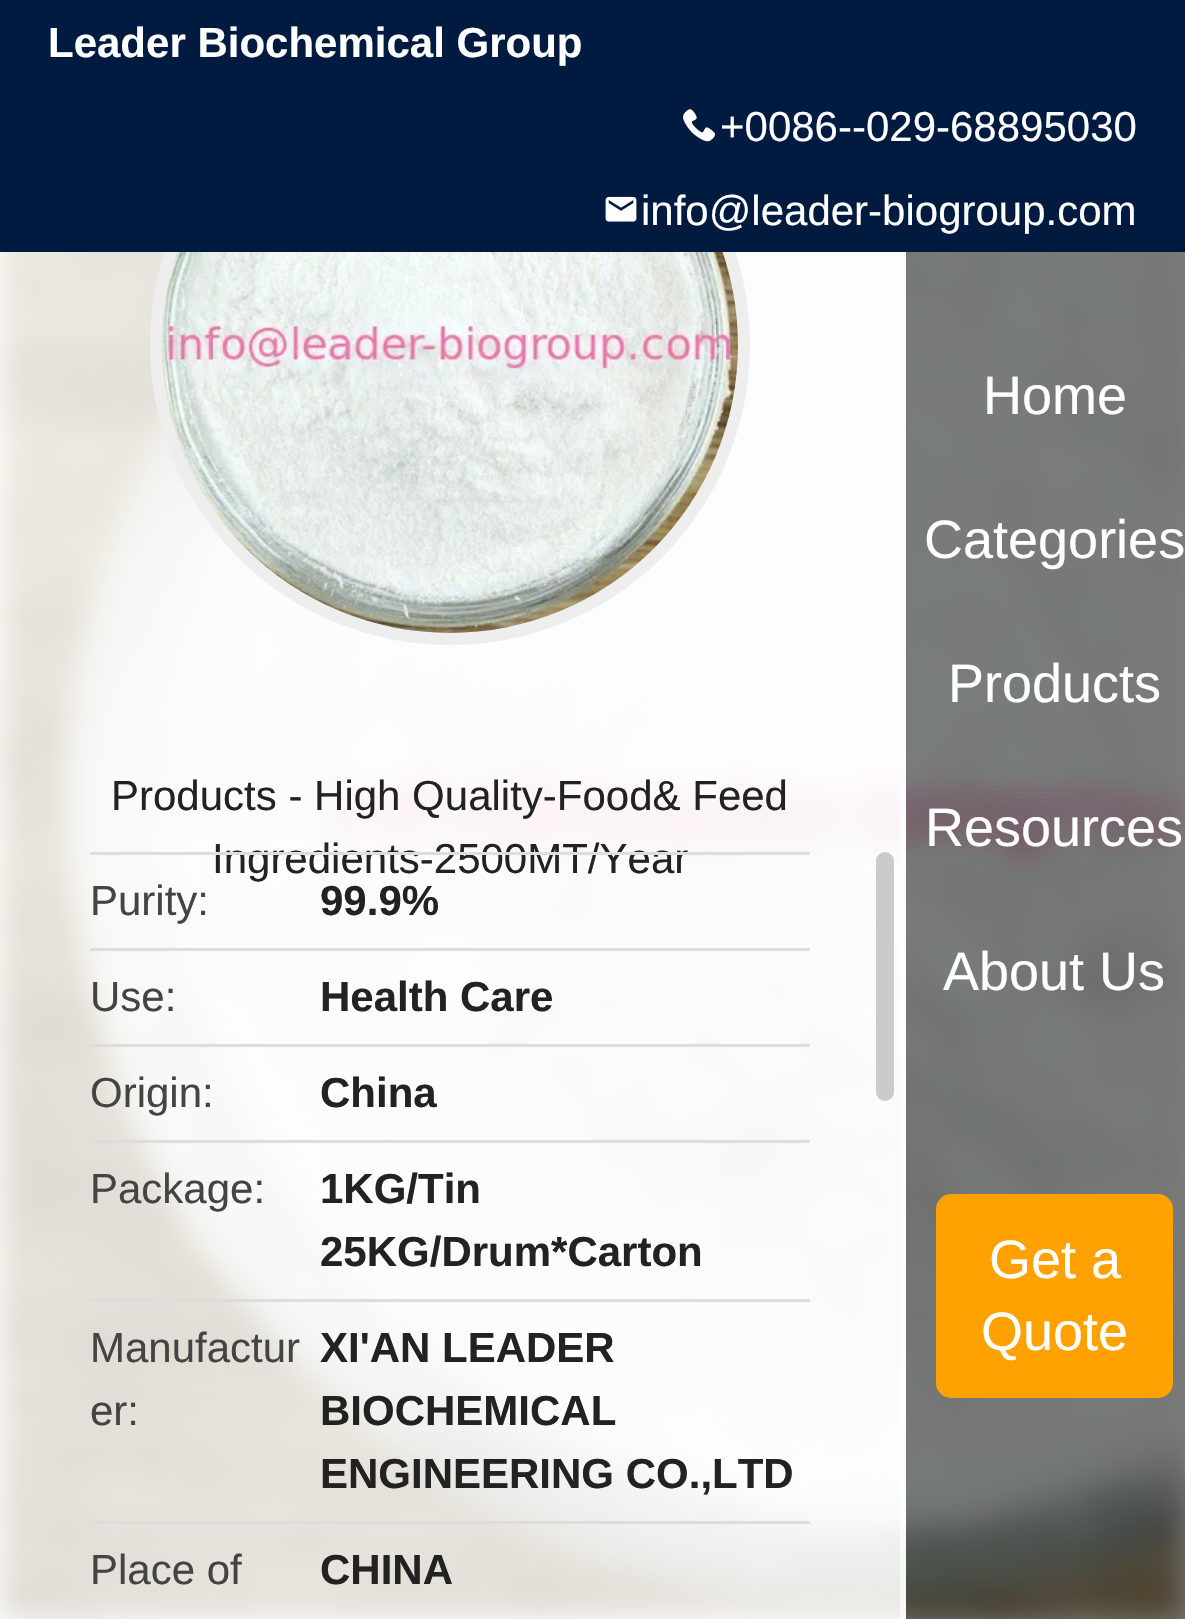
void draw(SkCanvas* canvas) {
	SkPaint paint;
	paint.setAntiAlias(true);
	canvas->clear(0xffffffff);
	canvas->drawImageRect(SkImages::DeferredFromEncodedData(SkData::MakeFromFileName("img3.png")), SkRect::MakeXYWH(0, 252, 1185, 1367), SkSamplingOptions());
	paint.setColor(0xccffffff);
	canvas->drawRect(SkRect::MakeXYWH(0, 252, 906, 1367), paint);
	paint.setStroke(true);
	paint.setStrokeWidth(12);
	paint.setColor(0xffeeeeee);
	canvas->drawCircle(450, 345, 294, paint);
	paint.setStroke(false);
	paint.setColor(0xff001b3f);
	canvas->drawRect(SkRect::MakeXYWH(0, 0, 1185, 252), paint);
	SkFont f1(fontMgr->matchFamilyStyle("Liberation Sans", SkFontStyle::Bold()), 42);
	f1.setSubpixel(true);
	paint.setColor(0xffffffff);
	canvas->drawString("Leader Biochemical Group", 48, 57, f1, paint);
	canvas->drawImageRect(SkImages::DeferredFromEncodedData(SkData::MakeFromFileName("img1.png")), SkRect::MakeXYWH(683, 109, 33, 33), SkSamplingOptions());
	SkFont f2(fontMgr->matchFamilyStyle("Liberation Sans", SkFontStyle::Normal()), 42);
	f2.setSubpixel(true);
	canvas->drawString("+0086--029-68895030", 720, 141, f2, paint);
	canvas->drawImageRect(SkImages::DeferredFromEncodedData(SkData::MakeFromFileName("img2.png")), SkRect::MakeXYWH(605, 196, 32, 26), SkSamplingOptions());
	canvas->drawString("info@leader-biogroup.com", 641, 225, f2, paint);
	paint.setColor(0x99ffffff);
	canvas->drawRect(SkRect::MakeXYWH(900, 780, 6, 839), paint);
	canvas->drawImageRect(SkImages::DeferredFromEncodedData(SkData::MakeFromFileName("img4.png")), SkRect::MakeXYWH(162, 252, 576, 381), SkSamplingOptions());
	paint.setColor(0xff222222);
	canvas->drawString("Products - High Quality-Food& Feed", 111, 810, f2, paint);
	canvas->drawString("Ingredients-2500MT/Year", 212, 873, f2, paint);
	paint.setColor(0xffdddddd);
	canvas->drawRect(SkRect::MakeXYWH(90, 852, 720, 3), paint);
	paint.setColor(0xff444444);
	canvas->drawString("Purity:", 90, 915, f2, paint);
	paint.setColor(0xff222222);
	canvas->drawString("99.9%", 320, 915, f1, paint);
	paint.setColor(0xffdddddd);
	canvas->drawRect(SkRect::MakeXYWH(90, 948, 720, 3), paint);
	paint.setColor(0xff444444);
	canvas->drawString("Use:", 90, 1011, f2, paint);
	paint.setColor(0xff222222);
	canvas->drawString("Health Care", 320, 1011, f1, paint);
	paint.setColor(0xffdddddd);
	canvas->drawRect(SkRect::MakeXYWH(90, 1044, 720, 3), paint);
	paint.setColor(0xff444444);
	canvas->drawString("Origin:", 90, 1107, f2, paint);
	paint.setColor(0xff222222);
	canvas->drawString("China", 320, 1107, f1, paint);
	paint.setColor(0xffdddddd);
	canvas->drawRect(SkRect::MakeXYWH(90, 1140, 720, 3), paint);
	paint.setColor(0xff444444);
	canvas->drawString("Package:", 90, 1203, f2, paint);
	paint.setColor(0xff222222);
	canvas->drawString("1KG/Tin", 320, 1203, f1, paint);
	canvas->drawString("25KG/Drum*Carton", 320, 1266, f1, paint);
	paint.setColor(0xffdddddd);
	canvas->drawRect(SkRect::MakeXYWH(90, 1299, 720, 3), paint);
	paint.setColor(0xff444444);
	canvas->drawString("Manufactur", 90, 1362, f2, paint);
	canvas->drawString("er:", 90, 1425, f2, paint);
	paint.setColor(0xff222222);
	canvas->drawString("XI'AN LEADER", 320, 1362, f1, paint);
	canvas->drawString("BIOCHEMICAL", 320, 1425, f1, paint);
	canvas->drawString("ENGINEERING CO.,LTD", 320, 1488, f1, paint);
	paint.setColor(0xffdddddd);
	canvas->drawRect(SkRect::MakeXYWH(90, 1521, 720, 3), paint);
	paint.setColor(0xff444444);
	canvas->drawString("Place of", 90, 1584, f2, paint);
	paint.setColor(0xff222222);
	canvas->drawString("CHINA", 320, 1584, f1, paint);
	paint.setColor(0x99aaaaaa);
	canvas->drawRoundRect(SkRect::MakeXYWH(876, 852, 18, 249), 9, 9, paint);
	paint.setColor(0x80000000);
	canvas->drawRect(SkRect::MakeXYWH(906, 252, 279, 1367), paint);
	SkFont f3(fontMgr->matchFamilyStyle("Liberation Sans", SkFontStyle::Normal()), 54);
	f3.setSubpixel(true);
	paint.setColor(0xffffffff);
	canvas->drawString("Home", 983, 414, f3, paint);
	canvas->drawString("Categories", 924, 558, f3, paint);
	canvas->drawString("Products", 948, 702, f3, paint);
	canvas->drawString("Resources", 925, 846, f3, paint);
	canvas->drawString("About Us", 943, 990, f3, paint);
	paint.setColor(0xffffa100);
	canvas->drawRoundRect(SkRect::MakeXYWH(936, 1194, 237, 204), 15, 15, paint);
	paint.setColor(0xffffffff);
	canvas->drawString("Get a", 989, 1278, f3, paint);
	canvas->drawString("Quote", 981, 1350, f3, paint);
}
